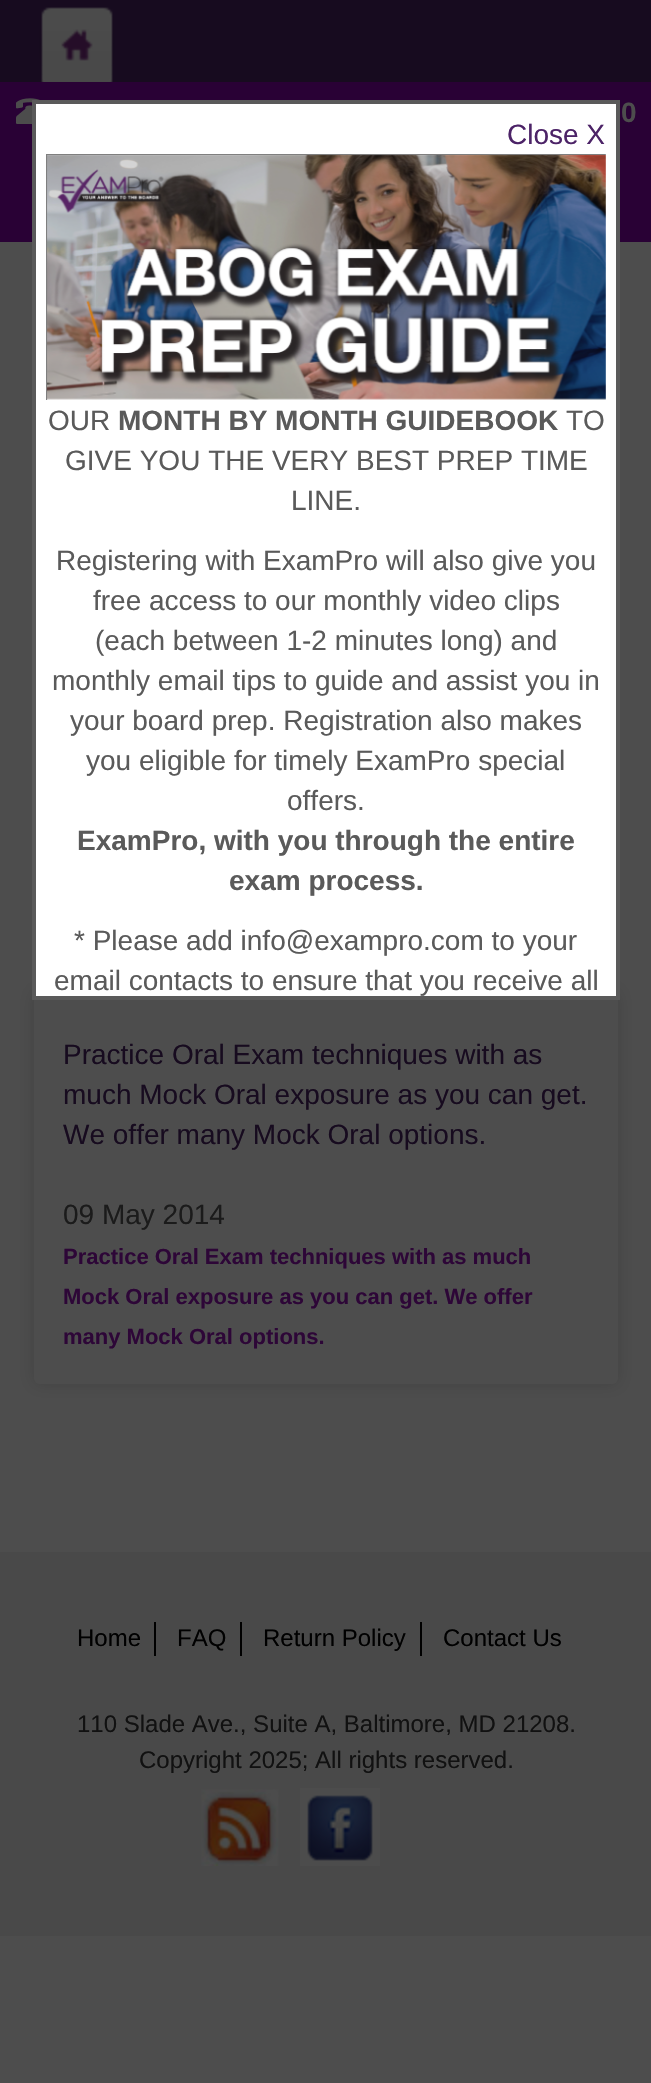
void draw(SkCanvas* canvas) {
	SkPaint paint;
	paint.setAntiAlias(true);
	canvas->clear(0xff4d4d4d);
	paint.setColor(0xff170b1f);
	canvas->drawRect(SkRect::MakeXYWH(0, 0, 651, 82), paint);
	canvas->drawImageRect(SkImages::DeferredFromEncodedData(SkData::MakeFromFileName("img1.png")), SkRect::MakeXYWH(39, 7, 76, 75), SkSamplingOptions());
	paint.setColor(0xff290135);
	canvas->drawRect(SkRect::MakeXYWH(0, 82, 651, 160), paint);
	canvas->drawImageRect(SkImages::DeferredFromEncodedData(SkData::MakeFromFileName("img2.png")), SkRect::MakeXYWH(16, 98, 24, 26), SkSamplingOptions());
	SkFont f1(fontMgr->matchFamilyStyle("Liberation Sans", SkFontStyle::Bold()), 28);
	f1.setSubpixel(true);
	paint.setColor(0xff4d4d4d);
	canvas->drawString("0", 621, 122, f1, paint);
	paint.setColor(0x26000000);
	paint.setMaskFilter(SkMaskFilter::MakeBlur(kNormal_SkBlurStyle, 8));
	canvas->drawRoundRect(SkRect::MakeXYWH(34, 992, 584, 392), 6, 6, paint);
	paint.setMaskFilter(nullptr);
	paint.setColor(0xff4d4d4d);
	canvas->drawRoundRect(SkRect::MakeXYWH(34, 992, 584, 392), 6, 6, paint);
	SkFont f2(fontMgr->matchFamilyStyle("Liberation Sans", SkFontStyle::Normal()), 28);
	f2.setSubpixel(true);
	paint.setColor(0xff170b1f);
	canvas->drawString("Practice Oral Exam techniques with as", 63, 1064, f2, paint);
	canvas->drawString("much Mock Oral exposure as you can get.", 63, 1104, f2, paint);
	canvas->drawString("We offer many Mock Oral options.", 63, 1144, f2, paint);
	paint.setColor(0xff1b1b1b);
	canvas->drawString("09 May 2014", 63, 1224, f2, paint);
	SkFont f3(fontMgr->matchFamilyStyle("Liberation Sans", SkFontStyle::Bold()), 22);
	f3.setSubpixel(true);
	paint.setColor(0xff2d0637);
	canvas->drawString("Practice Oral Exam techniques with as much", 63, 1264, f3, paint);
	canvas->drawString("Mock Oral exposure as you can get. We offer", 63, 1304, f3, paint);
	canvas->drawString("many Mock Oral options.", 63, 1344, f3, paint);
	paint.setColor(0xff494949);
	canvas->drawRect(SkRect::MakeXYWH(0, 1552, 651, 384), paint);
	paint.setColor(0xff000000);
	canvas->drawRect(SkRect::MakeXYWH(154, 1622, 2, 34), paint);
	SkFont f4(fontMgr->matchFamilyStyle("Liberation Sans", SkFontStyle::Normal()), 24);
	f4.setSubpixel(true);
	canvas->drawString("Home", 77, 1646, f4, paint);
	canvas->drawRect(SkRect::MakeXYWH(240, 1622, 2, 34), paint);
	canvas->drawString("FAQ", 177, 1646, f4, paint);
	canvas->drawRect(SkRect::MakeXYWH(420, 1622, 2, 34), paint);
	canvas->drawString("Return Policy", 263, 1646, f4, paint);
	canvas->drawString("Contact Us", 443, 1646, f4, paint);
	paint.setColor(0xff111111);
	canvas->drawString("110 Slade Ave., Suite A, Baltimore, MD 21208.", 77, 1732, f4, paint);
	canvas->drawString("Copyright 2025; All rights reserved.", 139, 1768, f4, paint);
	canvas->drawImageRect(SkImages::DeferredFromEncodedData(SkData::MakeFromFileName("img3.png")), SkRect::MakeXYWH(201, 1789, 78, 77), SkSamplingOptions());
	canvas->drawImageRect(SkImages::DeferredFromEncodedData(SkData::MakeFromFileName("img4.png")), SkRect::MakeXYWH(300, 1788, 80, 78), SkSamplingOptions());
	paint.setColor(0xffffffff);
	canvas->drawRect(SkRect::MakeXYWH(34, 102, 584, 896), paint);
	paint.setStroke(true);
	paint.setStrokeWidth(4);
	paint.setColor(0xff5a5a5a);
	canvas->drawRect(SkRect::MakeXYWH(34, 102, 584, 896), paint);
	paint.setStroke(false);
	paint.setColor(0xff4c2367);
	canvas->drawString("Close X", 507, 144, f2, paint);
	canvas->drawImageRect(SkImages::DeferredFromEncodedData(SkData::MakeFromFileName("img5.png")), SkRect::MakeXYWH(46, 154, 560, 246), SkSamplingOptions());
	paint.setColor(0xff5a5a5a);
	canvas->drawString("OUR", 48, 430, f2, paint);
	canvas->drawString("MONTH BY MONTH GUIDEBOOK", 118, 430, f1, paint);
	canvas->drawString("TO", 566, 430, f2, paint);
	canvas->drawString("GIVE YOU THE VERY BEST PREP TIME", 65, 470, f2, paint);
	canvas->drawString("LINE.", 291, 510, f2, paint);
	canvas->drawString("Registering with ExamPro will also give you", 56, 570, f2, paint);
	canvas->drawString("free access to our monthly video clips", 93, 610, f2, paint);
	canvas->drawString("(each between 1-2 minutes long) and", 95, 650, f2, paint);
	canvas->drawString("monthly email tips to guide and assist you in", 52, 690, f2, paint);
	canvas->drawString("your board prep. Registration also makes", 70, 730, f2, paint);
	canvas->drawString("you eligible for timely ExamPro special", 86, 770, f2, paint);
	canvas->drawString("offers.", 287, 810, f2, paint);
	canvas->drawString("ExamPro, with you through the entire", 77, 850, f1, paint);
	canvas->drawString("exam process.", 229, 890, f1, paint);
	canvas->drawString("* Please add info@exampro.com to your", 74, 950, f2, paint);
	canvas->drawString("email contacts to ensure that you receive all", 54, 990, f2, paint);
}
